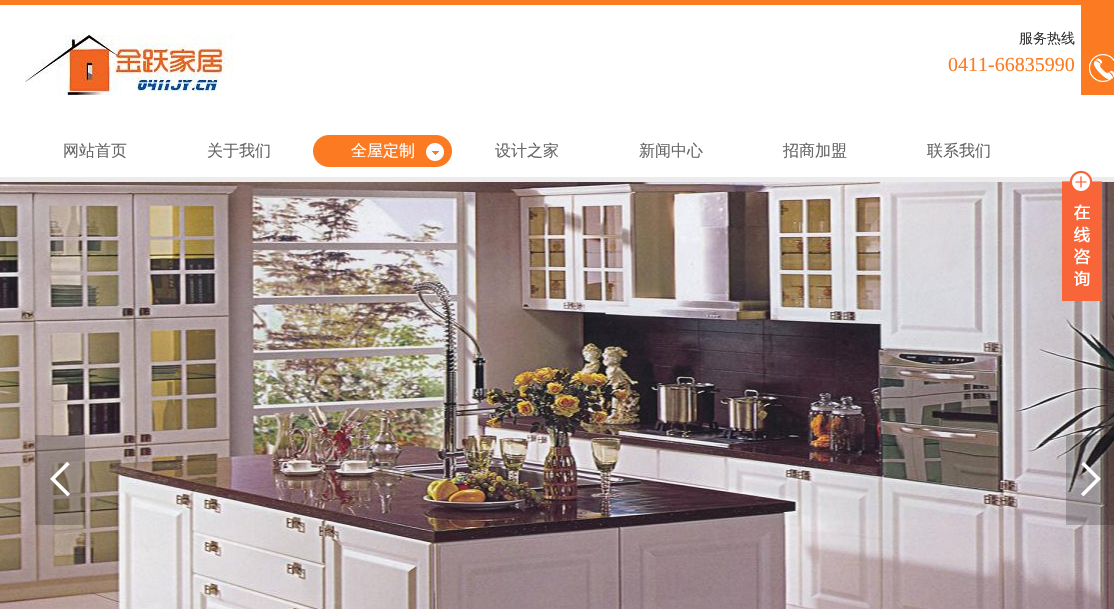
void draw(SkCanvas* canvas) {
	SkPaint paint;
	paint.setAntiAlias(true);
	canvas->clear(0xffffffff);
	paint.setColor(0xfffc7a22);
	canvas->drawRect(SkRect::MakeXYWH(0, 0, 1114, 5), paint);
	canvas->drawImageRect(SkImages::DeferredFromEncodedData(SkData::MakeFromFileName("img1.png")), SkRect::MakeXYWH(25, 35, 209, 60), SkSamplingOptions());
	canvas->drawImageRect(SkImages::DeferredFromEncodedData(SkData::MakeFromFileName("img2.png")), SkRect::MakeXYWH(1081, 5, 33, 90), SkSamplingOptions());
	SkFont f1(fontMgr->matchFamilyStyle("WenQuanYi Zen Hei", SkFontStyle(500, SkFontStyle::kNormal_Width, SkFontStyle::kUpright_Slant)), 14);
	f1.setSubpixel(true);
	paint.setColor(0xff333333);
	canvas->drawString("服务热线", 1019, 43, f1, paint);
	SkFont f2(fontMgr->matchFamilyStyle("Liberation Serif", SkFontStyle::Normal()), 20);
	f2.setSubpixel(true);
	paint.setColor(0xfffc7a22);
	canvas->drawString("0411-66835990", 948, 71, f2, paint);
	SkFont f3(fontMgr->matchFamilyStyle("WenQuanYi Zen Hei", SkFontStyle(500, SkFontStyle::kNormal_Width, SkFontStyle::kUpright_Slant)), 16);
	f3.setSubpixel(true);
	paint.setColor(0xff666666);
	canvas->drawString("网站首页", 63, 156, f3, paint);
	canvas->drawString("关于我们", 207, 156, f3, paint);
	canvas->drawImageRect(SkImages::DeferredFromEncodedData(SkData::MakeFromFileName("img3.png")), SkRect::MakeXYWH(313, 135, 139, 32), SkSamplingOptions());
	paint.setColor(0xffffffff);
	canvas->drawString("全屋定制", 351, 156, f3, paint);
	paint.setColor(0xff666666);
	canvas->drawString("设计之家", 495, 156, f3, paint);
	canvas->drawString("新闻中心", 639, 156, f3, paint);
	canvas->drawString("招商加盟", 783, 156, f3, paint);
	canvas->drawString("联系我们", 927, 156, f3, paint);
	paint.setColor(0xffececec);
	canvas->drawRect(SkRect::MakeXYWH(0, 177, 1114, 5), paint);
	canvas->drawImageRect(SkImages::DeferredFromEncodedData(SkData::MakeFromFileName("img5.png")), SkRect::MakeXYWH(0, 182, 1114, 427), SkSamplingOptions());
	canvas->drawImageRect(SkImages::DeferredFromEncodedData(SkData::MakeFromFileName("img4.png")), SkRect::MakeXYWH(1062, 170, 40, 131), SkSamplingOptions());
	canvas->drawImageRect(SkImages::DeferredFromEncodedData(SkData::MakeFromFileName("img6.png")), SkRect::MakeXYWH(35, 435, 50, 90), SkSamplingOptions());
	canvas->drawImageRect(SkImages::DeferredFromEncodedData(SkData::MakeFromFileName("img7.png")), SkRect::MakeXYWH(1066, 435, 48, 90), SkSamplingOptions());
}
